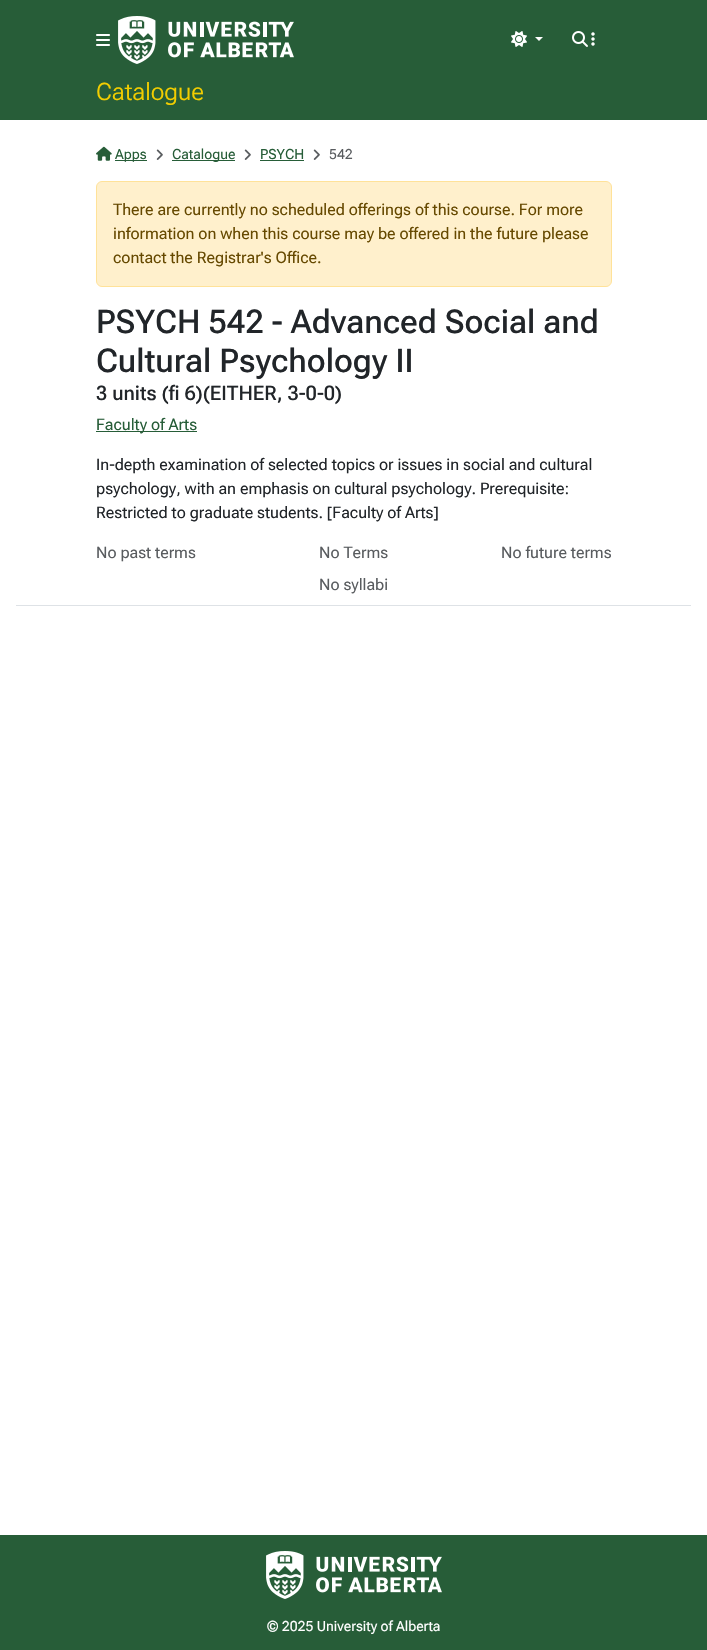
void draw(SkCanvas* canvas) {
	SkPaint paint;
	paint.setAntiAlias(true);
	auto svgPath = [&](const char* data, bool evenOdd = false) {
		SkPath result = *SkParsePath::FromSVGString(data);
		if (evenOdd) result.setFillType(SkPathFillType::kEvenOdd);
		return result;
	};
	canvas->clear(0xffffffff);
	paint.setColor(0xff275d38);
	canvas->drawRect(SkRect::MakeXYWH(0, 0, 707, 120), paint);
	canvas->drawImageRect(SkImages::DeferredFromEncodedData(SkData::MakeFromFileName("img1.png")), SkRect::MakeXYWH(96, 34, 14, 12), SkSamplingOptions());
	canvas->drawImageRect(SkImages::DeferredFromEncodedData(SkData::MakeFromFileName("img2.png")), SkRect::MakeXYWH(118, 16, 176, 48), SkSamplingOptions());
	canvas->drawImageRect(SkImages::DeferredFromEncodedData(SkData::MakeFromFileName("img3.png")), SkRect::MakeXYWH(511, 31, 16, 16), SkSamplingOptions());
	paint.setColor(0xffffffff);
	canvas->drawPath(svgPath("M535 37H543L539 41Z"), paint);
	canvas->drawImageRect(SkImages::DeferredFromEncodedData(SkData::MakeFromFileName("img4.png")), SkRect::MakeXYWH(572, 31, 16, 16), SkSamplingOptions());
	canvas->drawImageRect(SkImages::DeferredFromEncodedData(SkData::MakeFromFileName("img5.png")), SkRect::MakeXYWH(591, 32, 4, 14), SkSamplingOptions());
	SkFont f1(fontMgr->matchFamilyStyle("Roboto Flex", SkFontStyle(300, SkFontStyle::kNormal_Width, SkFontStyle::kUpright_Slant)), 24);
	f1.setSubpixel(true);
	paint.setColor(0xfff2cd00);
	canvas->drawString("Catalogue", 96, 100, f1, paint);
	paint.setColor(0xffdee2e6);
	canvas->drawRect(SkRect::MakeXYWH(16, 605, 675, 1), paint);
	canvas->drawImageRect(SkImages::DeferredFromEncodedData(SkData::MakeFromFileName("img6.png")), SkRect::MakeXYWH(96, 146, 16, 15), SkSamplingOptions());
	paint.setColor(0xff275d38);
	canvas->drawRect(SkRect::MakeXYWH(115, 160, 32, 1), paint);
	SkFont f2(fontMgr->matchFamilyStyle("Roboto Flex", SkFontStyle::Normal()), 14);
	f2.setSubpixel(true);
	canvas->drawString("Apps", 115, 159, f2, paint);
	canvas->drawImageRect(SkImages::DeferredFromEncodedData(SkData::MakeFromFileName("img7.png")), SkRect::MakeXYWH(156, 149, 7, 11), SkSamplingOptions());
	canvas->drawRect(SkRect::MakeXYWH(172, 160, 63, 1), paint);
	canvas->drawString("Catalogue", 172, 159, f2, paint);
	canvas->drawImageRect(SkImages::DeferredFromEncodedData(SkData::MakeFromFileName("img7.png")), SkRect::MakeXYWH(244, 149, 7, 11), SkSamplingOptions());
	canvas->drawString("PSYCH", 260, 159, f2, paint);
	canvas->drawRect(SkRect::MakeXYWH(260, 160, 44, 1), paint);
	canvas->drawImageRect(SkImages::DeferredFromEncodedData(SkData::MakeFromFileName("img7.png")), SkRect::MakeXYWH(313, 149, 7, 11), SkSamplingOptions());
	paint.setColor(0xff595c5f);
	canvas->drawString("542", 329, 159, f2, paint);
	paint.setColor(0xfffff0cc);
	canvas->drawRoundRect(SkRect::MakeXYWH(96.5, 181.5, 515, 105), 5.5, 5.5, paint);
	paint.setStroke(true);
	paint.setStrokeWidth(1);
	paint.setColor(0xffffe299);
	canvas->drawRoundRect(SkRect::MakeXYWH(96.5, 181.5, 515, 105), 5.5, 5.5, paint);
	SkFont f3(fontMgr->matchFamilyStyle("Roboto Flex", SkFontStyle::Normal()), 16);
	f3.setSubpixel(true);
	paint.setStroke(false);
	paint.setColor(0xff664900);
	canvas->drawString("There are currently no scheduled offerings of this course. For more", 113, 215, f3, paint);
	canvas->drawString("information on when this course may be offered in the future please", 113, 239, f3, paint);
	canvas->drawString("contact the Registrar's Office.", 113, 263, f3, paint);
	SkFont f4(fontMgr->matchFamilyStyle("Roboto Flex", SkFontStyle(500, SkFontStyle::kNormal_Width, SkFontStyle::kUpright_Slant)), 32.6);
	f4.setSubpixel(true);
	paint.setColor(0xff212529);
	canvas->drawString("PSYCH 542 - Advanced Social and", 96, 333, f4, paint);
	canvas->drawString("Cultural Psychology II", 96, 372, f4, paint);
	SkFont f5(fontMgr->matchFamilyStyle("Roboto Flex", SkFontStyle(500, SkFontStyle::kNormal_Width, SkFontStyle::kUpright_Slant)), 20);
	f5.setSubpixel(true);
	canvas->drawString("3 units (fi 6)(EITHER, 3-0-0)", 96, 400, f5, paint);
	paint.setColor(0xff275d38);
	canvas->drawRect(SkRect::MakeXYWH(96, 431, 101, 1), paint);
	canvas->drawString("Faculty of Arts", 96, 430, f3, paint);
	paint.setColor(0xff212529);
	canvas->drawString("In-depth examination of selected topics or issues in social and cultural", 96, 470, f3, paint);
	canvas->drawString("psychology, with an emphasis on cultural psychology. Prerequisite:", 96, 494, f3, paint);
	canvas->drawString("Restricted to graduate students. [Faculty of Arts]", 96, 518, f3, paint);
	paint.setColor(0xff595c5f);
	canvas->drawString("No past terms", 96, 558, f3, paint);
	canvas->drawString("No Terms", 319, 558, f3, paint);
	canvas->drawString("No future terms", 501, 558, f3, paint);
	canvas->drawString("No syllabi", 319, 590, f3, paint);
	paint.setColor(0xff275d38);
	canvas->drawRect(SkRect::MakeXYWH(0, 1535, 707, 115), paint);
	canvas->drawImageRect(SkImages::DeferredFromEncodedData(SkData::MakeFromFileName("img2.png")), SkRect::MakeXYWH(266, 1551, 176, 48), SkSamplingOptions());
	paint.setColor(0xffffffff);
	canvas->drawString("© 2025 University of Alberta", 267, 1631, f2, paint);
}
